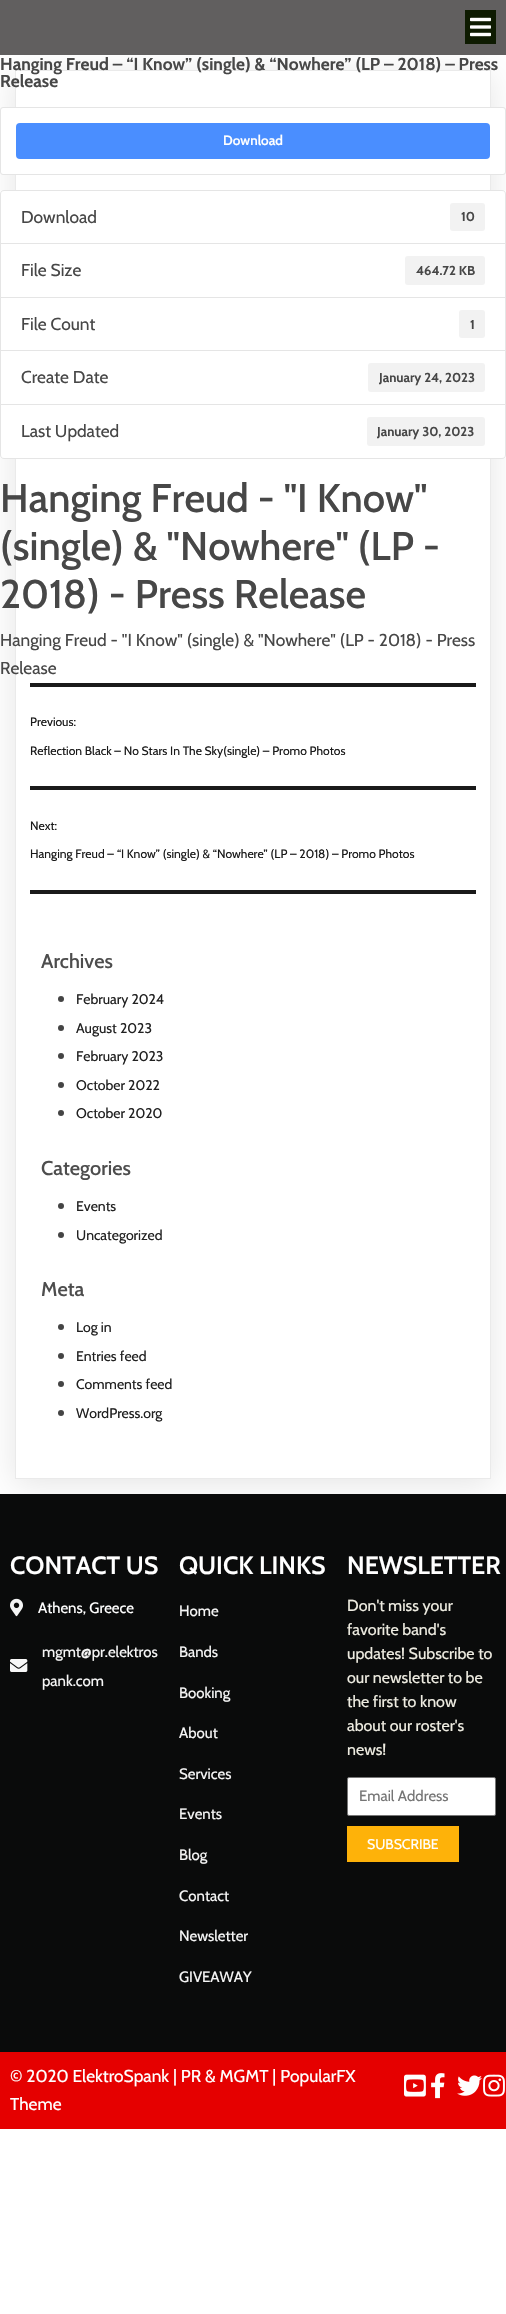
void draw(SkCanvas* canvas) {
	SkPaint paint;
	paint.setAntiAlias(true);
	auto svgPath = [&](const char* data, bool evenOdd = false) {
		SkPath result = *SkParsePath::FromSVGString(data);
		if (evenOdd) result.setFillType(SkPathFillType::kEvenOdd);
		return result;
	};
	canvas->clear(0xffffffff);
	canvas->save();
	canvas->clipPath(svgPath("M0 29H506V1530H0ZM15 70H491V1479H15Z", true), true);
	paint.setColor(0x1a000000);
	paint.setMaskFilter(SkMaskFilter::MakeBlur(kNormal_SkBlurStyle, 15));
	canvas->drawRect(SkRect::MakeXYWH(15, 75, 476, 1409), paint);
	paint.setMaskFilter(nullptr);
	canvas->restore();
	paint.setColor(0xff615f5f);
	canvas->drawRect(SkRect::MakeXYWH(0, 0, 506, 55), paint);
	paint.setColor(0xff0e1b01);
	canvas->drawRect(SkRect::MakeXYWH(465, 10, 31, 34), paint);
	canvas->drawImageRect(SkImages::DeferredFromEncodedData(SkData::MakeFromFileName("img1.png")), SkRect::MakeXYWH(470, 17, 21, 20), SkSamplingOptions());
	paint.setStroke(true);
	paint.setStrokeWidth(1);
	paint.setColor(0xffeaeaea);
	canvas->drawRect(SkRect::MakeXYWH(15.5, 70.5, 475, 1408), paint);
	SkFont f1(fontMgr->matchFamilyStyle("Cabin", SkFontStyle::Bold()), 17.3);
	f1.setSubpixel(true);
	paint.setStroke(false);
	paint.setColor(0xff474747);
	canvas->drawString("Hanging Freud – “I Know” (single) & “Nowhere” (LP – 2018) – Press", 0, 70, f1, paint);
	canvas->drawString("Release", 0, 87, f1, paint);
	paint.setColor(0xffffffff);
	canvas->drawRoundRect(SkRect::MakeXYWH(0.5, 107.5, 505, 67), 2.5, 2.5, paint);
	paint.setStroke(true);
	paint.setColor(0xffe5e5e5);
	canvas->drawRoundRect(SkRect::MakeXYWH(0.5, 107.5, 505, 67), 2.5, 2.5, paint);
	paint.setStroke(false);
	paint.setColor(0xff4a8eff);
	canvas->drawRoundRect(SkRect::MakeXYWH(16, 123, 474, 36), 4, 4, paint);
	SkFont f2(fontMgr->matchFamilyStyle("Cabin", SkFontStyle(600, SkFontStyle::kNormal_Width, SkFontStyle::kUpright_Slant)), 13.5);
	f2.setSubpixel(true);
	paint.setColor(0xffffffff);
	canvas->drawString("Download", 223, 145, f2, paint);
	canvas->drawPath(svgPath("M4 190.5H502C504 190.5 505.5 192 505.5 194V243.5H.5V194C.5 192 2 190.5 4 190.5Z"), paint);
	paint.setStroke(true);
	paint.setColor(0xffe5e5e5);
	canvas->drawPath(svgPath("M4 190.5H502C504 190.5 505.5 192 505.5 194V243.5H.5V194C.5 192 2 190.5 4 190.5Z"), paint);
	SkFont f3(fontMgr->matchFamilyStyle("Cabin", SkFontStyle::Normal()), 17.3);
	f3.setSubpixel(true);
	paint.setStroke(false);
	paint.setColor(0xff474747);
	canvas->drawString("Download", 21, 223, f3, paint);
	paint.setColor(0xfff2f2f2);
	canvas->drawRoundRect(SkRect::MakeXYWH(450, 203, 35, 28), 3, 3, paint);
	SkFont f4(fontMgr->matchFamilyStyle("Cabin", SkFontStyle::Bold()), 13);
	f4.setSubpixel(true);
	paint.setColor(0xff474747);
	canvas->drawString("10", 461, 221, f4, paint);
	paint.setColor(0xffffffff);
	canvas->drawRect(SkRect::MakeXYWH(0.5, 243.5, 505, 54), paint);
	paint.setStroke(true);
	paint.setColor(0xffe5e5e5);
	canvas->drawRect(SkRect::MakeXYWH(0.5, 243.5, 505, 54), paint);
	paint.setStroke(false);
	paint.setColor(0xff474747);
	canvas->drawString("File Size", 21, 276, f3, paint);
	paint.setColor(0xfff2f2f2);
	canvas->drawRoundRect(SkRect::MakeXYWH(405, 256, 80, 29), 3, 3, paint);
	paint.setColor(0xff474747);
	canvas->drawString("464.72 KB", 416, 275, f4, paint);
	paint.setColor(0xffffffff);
	canvas->drawRect(SkRect::MakeXYWH(0.5, 297.5, 505, 53), paint);
	paint.setStroke(true);
	paint.setColor(0xffe5e5e5);
	canvas->drawRect(SkRect::MakeXYWH(0.5, 297.5, 505, 53), paint);
	paint.setStroke(false);
	paint.setColor(0xff474747);
	canvas->drawString("File Count", 21, 330, f3, paint);
	paint.setColor(0xfff2f2f2);
	canvas->drawRoundRect(SkRect::MakeXYWH(459, 310, 26, 28), 3, 3, paint);
	paint.setColor(0xff474747);
	canvas->drawString("1", 470, 329, f4, paint);
	paint.setColor(0xffffffff);
	canvas->drawRect(SkRect::MakeXYWH(0.5, 350.5, 505, 54), paint);
	paint.setStroke(true);
	paint.setColor(0xffe5e5e5);
	canvas->drawRect(SkRect::MakeXYWH(0.5, 350.5, 505, 54), paint);
	paint.setStroke(false);
	paint.setColor(0xff474747);
	canvas->drawString("Create Date", 21, 383, f3, paint);
	paint.setColor(0xfff2f2f2);
	canvas->drawRoundRect(SkRect::MakeXYWH(368, 363, 117, 29), 3, 3, paint);
	paint.setColor(0xff474747);
	canvas->drawString("January 24, 2023", 379, 382, f4, paint);
	paint.setColor(0xffffffff);
	canvas->drawPath(svgPath("M.5 404.5H505.5V455C505.5 457 504 458.5 502 458.5H4C2 458.5 .5 457 .5 455Z"), paint);
	paint.setStroke(true);
	paint.setColor(0xffe5e5e5);
	canvas->drawPath(svgPath("M.5 404.5H505.5V455C505.5 457 504 458.5 502 458.5H4C2 458.5 .5 457 .5 455Z"), paint);
	paint.setStroke(false);
	paint.setColor(0xff474747);
	canvas->drawString("Last Updated", 21, 437, f3, paint);
	paint.setColor(0xfff2f2f2);
	canvas->drawRoundRect(SkRect::MakeXYWH(367, 417, 118, 29), 3, 3, paint);
	paint.setColor(0xff474747);
	canvas->drawString("January 30, 2023", 377, 436, f4, paint);
	SkFont f5(fontMgr->matchFamilyStyle("Cabin", SkFontStyle(500, SkFontStyle::kNormal_Width, SkFontStyle::kUpright_Slant)), 40);
	f5.setSubpixel(true);
	canvas->drawString("Hanging Freud - \"I Know\"", 0, 512, f5, paint);
	canvas->drawString("(single) & \"Nowhere\" (LP -", 0, 560, f5, paint);
	canvas->drawString("2018) - Press Release", 0, 608, f5, paint);
	canvas->drawString("Hanging Freud - \"I Know\" (single) & \"Nowhere\" (LP - 2018) - Press", 0, 646, f3, paint);
	canvas->drawString("Release", 0, 674, f3, paint);
	paint.setColor(0xff1a1a1a);
	canvas->drawRect(SkRect::MakeXYWH(30, 683, 446, 4), paint);
	canvas->drawRect(SkRect::MakeXYWH(30, 786, 446, 4), paint);
	SkFont f6(fontMgr->matchFamilyStyle("Cabin", SkFontStyle::Normal()), 12.1);
	f6.setSubpixel(true);
	canvas->drawString("Previous:", 30, 726, f6, paint);
	canvas->drawString("Reflection Black – No Stars In The Sky(single) – Promo Photos", 30, 755, f6, paint);
	canvas->drawRect(SkRect::MakeXYWH(30, 890, 446, 4), paint);
	canvas->drawString("Next:", 30, 830, f6, paint);
	canvas->drawString("Hanging Freud – “I Know” (single) & “Nowhere” (LP – 2018) – Promo Photos", 30, 858, f6, paint);
	SkFont f7(fontMgr->matchFamilyStyle("Cabin", SkFontStyle(500, SkFontStyle::kNormal_Width, SkFontStyle::kUpright_Slant)), 20);
	f7.setSubpixel(true);
	paint.setColor(0xff4d4d4d);
	canvas->drawString("Archives", 41, 968, f7, paint);
	paint.setColor(0xff444444);
	canvas->drawCircle(61, 999, 3, paint);
	SkFont f8(fontMgr->matchFamilyStyle("Cabin", SkFontStyle::Normal()), 14);
	f8.setSubpixel(true);
	paint.setColor(0xff212121);
	canvas->drawString("February 2024", 76, 1004, f8, paint);
	paint.setColor(0xff444444);
	canvas->drawCircle(61, 1028, 3, paint);
	paint.setColor(0xff212121);
	canvas->drawString("August 2023", 76, 1033, f8, paint);
	paint.setColor(0xff444444);
	canvas->drawCircle(61, 1056, 3, paint);
	paint.setColor(0xff212121);
	canvas->drawString("February 2023", 76, 1061, f8, paint);
	paint.setColor(0xff444444);
	canvas->drawCircle(61, 1085, 3, paint);
	paint.setColor(0xff212121);
	canvas->drawString("October 2022", 76, 1090, f8, paint);
	paint.setColor(0xff444444);
	canvas->drawCircle(61, 1113, 3, paint);
	paint.setColor(0xff212121);
	canvas->drawString("October 2020", 76, 1118, f8, paint);
	paint.setColor(0xff4d4d4d);
	canvas->drawString("Categories", 41, 1175, f7, paint);
	paint.setColor(0xff444444);
	canvas->drawCircle(61, 1206, 3, paint);
	paint.setColor(0xff212121);
	canvas->drawString("Events", 76, 1211, f8, paint);
	paint.setColor(0xff444444);
	canvas->drawCircle(61, 1235, 3, paint);
	paint.setColor(0xff212121);
	canvas->drawString("Uncategorized", 76, 1240, f8, paint);
	paint.setColor(0xff4d4d4d);
	canvas->drawString("Meta", 41, 1296, f7, paint);
	paint.setColor(0xff444444);
	canvas->drawCircle(61, 1327, 3, paint);
	paint.setColor(0xff212121);
	canvas->drawString("Log in", 76, 1332, f8, paint);
	paint.setColor(0xff444444);
	canvas->drawCircle(61, 1356, 3, paint);
	paint.setColor(0xff212121);
	canvas->drawString("Entries feed", 76, 1361, f8, paint);
	paint.setColor(0xff444444);
	canvas->drawCircle(61, 1384, 3, paint);
	paint.setColor(0xff212121);
	canvas->drawString("Comments feed", 76, 1389, f8, paint);
	paint.setColor(0xff444444);
	canvas->drawCircle(61, 1413, 3, paint);
	paint.setColor(0xff212121);
	canvas->drawString("WordPress.org", 76, 1418, f8, paint);
	paint.setColor(0xff0a0b0b);
	canvas->drawRect(SkRect::MakeXYWH(0, 1494, 506, 558), paint);
	SkFont f9(fontMgr->matchFamilyStyle("Cabin", SkFontStyle(600, SkFontStyle::kNormal_Width, SkFontStyle::kUpright_Slant)), 25);
	f9.setSubpixel(true);
	paint.setColor(0xffffffff);
	canvas->drawString("CONTACT US", 10, 1574, f9, paint);
	canvas->drawImageRect(SkImages::DeferredFromEncodedData(SkData::MakeFromFileName("img2.png")), SkRect::MakeXYWH(10, 1598, 13, 19), SkSamplingOptions());
	SkFont f10(fontMgr->matchFamilyStyle("Cabin", SkFontStyle::Normal()), 15);
	f10.setSubpixel(true);
	canvas->drawString("Athens, Greece", 38, 1613, f10, paint);
	canvas->drawImageRect(SkImages::DeferredFromEncodedData(SkData::MakeFromFileName("img3.png")), SkRect::MakeXYWH(10, 1659, 18, 13), SkSamplingOptions());
	paint.setColor(0xfff6f6f6);
	canvas->drawString("mgmt@pr.elektros", 42, 1657, f10, paint);
	canvas->drawString("pank.com", 42, 1686, f10, paint);
	paint.setColor(0xffffffff);
	canvas->drawString("QUICK LINKS", 179, 1574, f9, paint);
	paint.setColor(0xfff6f6f6);
	canvas->drawString("Home", 179, 1616, f10, paint);
	canvas->drawString("Bands", 179, 1657, f10, paint);
	canvas->drawString("Booking", 179, 1698, f10, paint);
	canvas->drawString("About", 179, 1738, f10, paint);
	canvas->drawString("Services", 179, 1779, f10, paint);
	canvas->drawString("Events", 179, 1819, f10, paint);
	canvas->drawString("Blog", 179, 1860, f10, paint);
	canvas->drawString("Contact", 179, 1901, f10, paint);
	canvas->drawString("Newsletter", 179, 1941, f10, paint);
	canvas->drawString("GIVEAWAY", 179, 1982, f10, paint);
	paint.setColor(0xffffffff);
	canvas->drawString("NEWSLETTER", 347, 1574, f9, paint);
	SkFont f11(fontMgr->matchFamilyStyle("Cabin", SkFontStyle::Normal()), 16);
	f11.setSubpixel(true);
	paint.setColor(0xffeeece1);
	canvas->drawString("Don't miss your", 347, 1611, f11, paint);
	canvas->drawString("favorite band's", 347, 1635, f11, paint);
	canvas->drawString("updates! Subscribe to", 347, 1659, f11, paint);
	canvas->drawString("our newsletter to be", 347, 1683, f11, paint);
	canvas->drawString("the first to know", 347, 1707, f11, paint);
	canvas->drawString("about our roster's", 347, 1731, f11, paint);
	canvas->drawString("news!", 347, 1755, f11, paint);
	paint.setColor(0xffffffff);
	canvas->drawRoundRect(SkRect::MakeXYWH(347.5, 1777.5, 148, 38), 1.5, 1.5, paint);
	paint.setStroke(true);
	paint.setColor(0xff767676);
	canvas->drawRoundRect(SkRect::MakeXYWH(347.5, 1777.5, 148, 38), 1.5, 1.5, paint);
	paint.setStroke(false);
	paint.setColor(0xff757575);
	canvas->drawString("Email Address", 359, 1801, f10, paint);
	paint.setColor(0xfffeb209);
	canvas->drawRect(SkRect::MakeXYWH(347, 1826, 112, 36), paint);
	paint.setColor(0xffffffff);
	canvas->drawString("SUBSCRIBE", 367, 1849, f8, paint);
	paint.setColor(0xffe50000);
	canvas->drawRect(SkRect::MakeXYWH(0, 2052, 506, 77), paint);
	paint.setColor(0xffffffff);
	canvas->drawString("© 2020 ElektroSpank | PR & MGMT | PopularFX", 10, 2082, f3, paint);
	canvas->drawString("Theme", 10, 2110, f3, paint);
	canvas->drawImageRect(SkImages::DeferredFromEncodedData(SkData::MakeFromFileName("img4.png")), SkRect::MakeXYWH(404, 2074, 22, 23), SkSamplingOptions());
	canvas->drawImageRect(SkImages::DeferredFromEncodedData(SkData::MakeFromFileName("img5.png")), SkRect::MakeXYWH(431, 2073, 14, 26), SkSamplingOptions());
	canvas->drawImageRect(SkImages::DeferredFromEncodedData(SkData::MakeFromFileName("img6.png")), SkRect::MakeXYWH(457, 2075, 25, 21), SkSamplingOptions());
	canvas->drawImageRect(SkImages::DeferredFromEncodedData(SkData::MakeFromFileName("img7.png")), SkRect::MakeXYWH(483, 2074, 22, 23), SkSamplingOptions());
}
